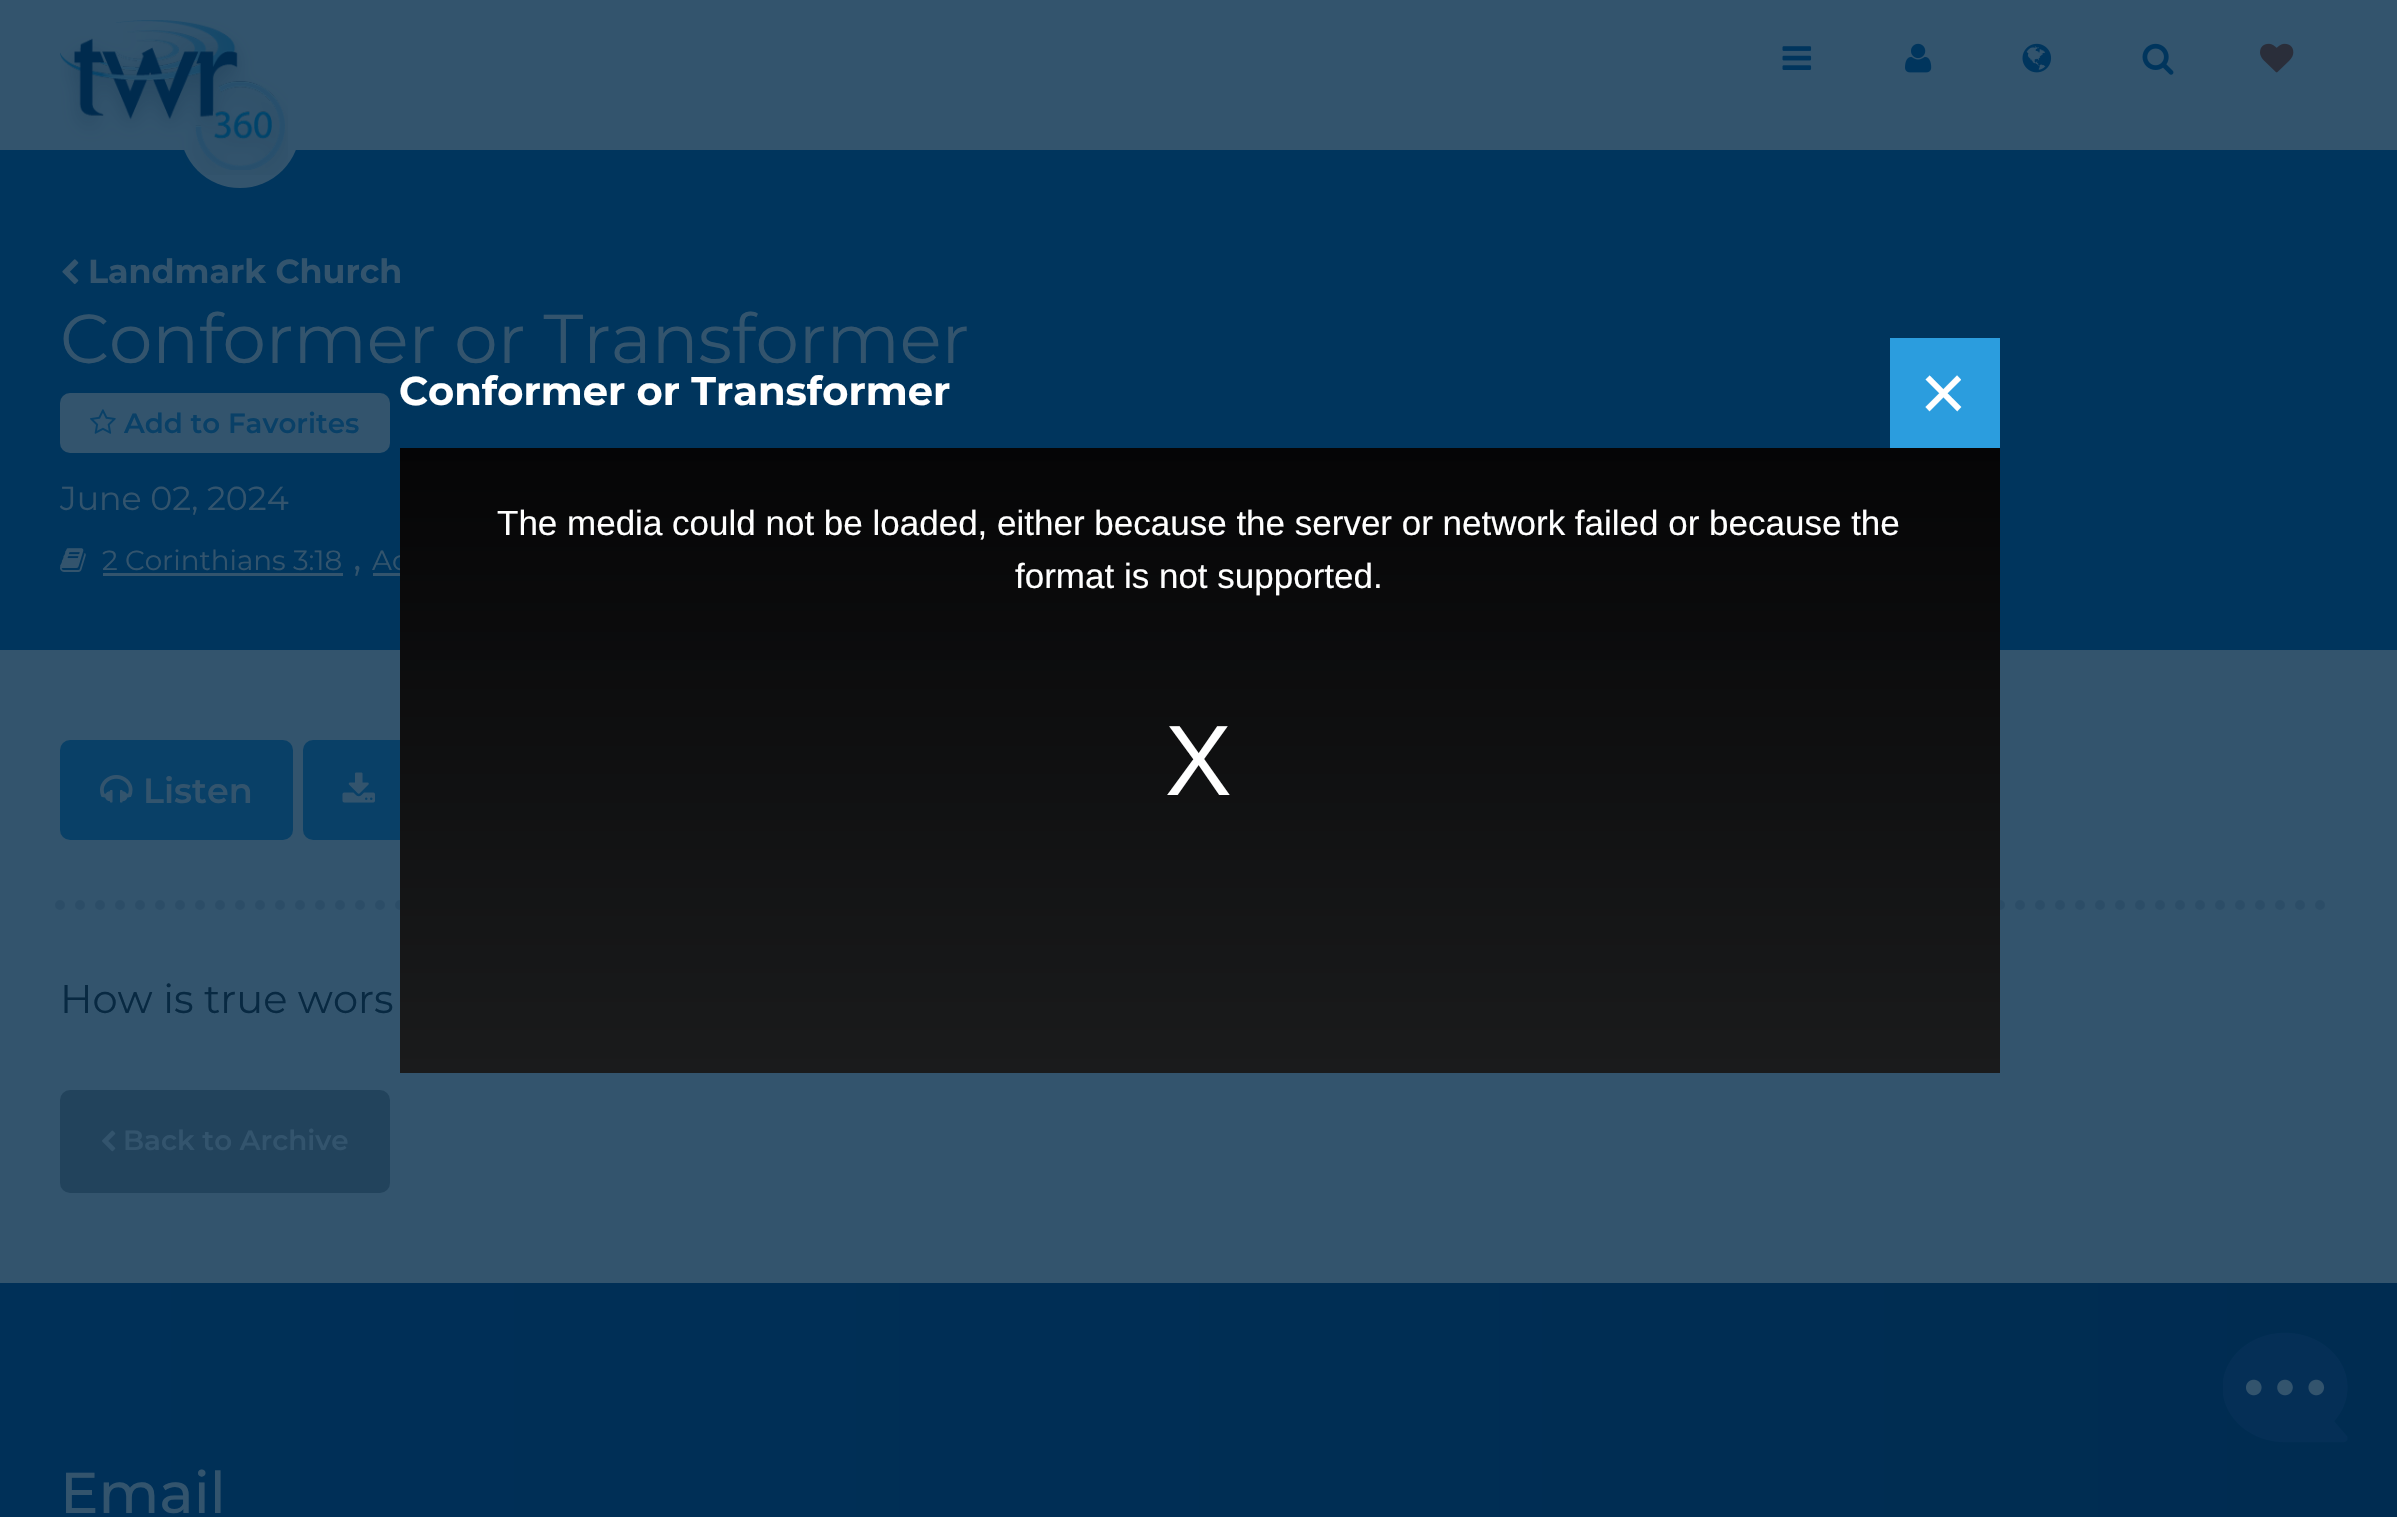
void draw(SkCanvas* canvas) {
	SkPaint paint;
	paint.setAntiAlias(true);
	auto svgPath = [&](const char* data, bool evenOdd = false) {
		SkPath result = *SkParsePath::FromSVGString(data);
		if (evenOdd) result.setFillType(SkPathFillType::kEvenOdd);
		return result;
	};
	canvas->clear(0xff33546d);
	paint.setColor(0xff00355d);
	canvas->drawRect(SkRect::MakeXYWH(0, 150, 2397, 500), paint);
	paint.setColor(0xff33546d);
	canvas->drawCircle(240, 128, 60, paint);
	canvas->drawImageRect(SkImages::DeferredFromEncodedData(SkData::MakeFromFileName("img1.png")), SkRect::MakeXYWH(60, 20, 228, 155), SkSamplingOptions());
	canvas->drawImageRect(SkImages::DeferredFromEncodedData(SkData::MakeFromFileName("img2.png")), SkRect::MakeXYWH(1782, 46, 30, 24), SkSamplingOptions());
	canvas->drawImageRect(SkImages::DeferredFromEncodedData(SkData::MakeFromFileName("img3.png")), SkRect::MakeXYWH(1905, 43, 27, 30), SkSamplingOptions());
	canvas->drawImageRect(SkImages::DeferredFromEncodedData(SkData::MakeFromFileName("img4.png")), SkRect::MakeXYWH(2022, 43, 30, 30), SkSamplingOptions());
	canvas->drawImageRect(SkImages::DeferredFromEncodedData(SkData::MakeFromFileName("img5.png")), SkRect::MakeXYWH(2142, 43, 32, 32), SkSamplingOptions());
	canvas->drawImageRect(SkImages::DeferredFromEncodedData(SkData::MakeFromFileName("img6.png")), SkRect::MakeXYWH(2260, 43, 34, 30), SkSamplingOptions());
	canvas->drawImageRect(SkImages::DeferredFromEncodedData(SkData::MakeFromFileName("img7.png")), SkRect::MakeXYWH(62, 259, 17, 26), SkSamplingOptions());
	SkFont f1(fontMgr->matchFamilyStyle("Montserrat", SkFontStyle::Bold()), 33.25);
	f1.setSubpixel(true);
	canvas->drawString("Landmark Church", 88, 283, f1, paint);
	SkFont f2(fontMgr->matchFamilyStyle("Montserrat", SkFontStyle::Normal()), 69.1);
	f2.setSubpixel(true);
	canvas->drawString("Conformer or Transformer", 60, 363, f2, paint);
	canvas->drawRoundRect(SkRect::MakeXYWH(60, 393, 330, 60), 10, 10, paint);
	canvas->drawImageRect(SkImages::DeferredFromEncodedData(SkData::MakeFromFileName("img8.png")), SkRect::MakeXYWH(90, 409, 26, 25), SkSamplingOptions());
	SkFont f3(fontMgr->matchFamilyStyle("Montserrat", SkFontStyle(600, SkFontStyle::kNormal_Width, SkFontStyle::kUpright_Slant)), 27.75);
	f3.setSubpixel(true);
	paint.setColor(0xff094067);
	canvas->drawString("Add to Favorites", 124, 433, f3, paint);
	SkFont f4(fontMgr->matchFamilyStyle("Montserrat", SkFontStyle::Normal()), 33.25);
	f4.setSubpixel(true);
	paint.setColor(0xff33546d);
	canvas->drawString("June 02, 2024", 60, 510, f4, paint);
	canvas->drawImageRect(SkImages::DeferredFromEncodedData(SkData::MakeFromFileName("img9.png")), SkRect::MakeXYWH(60, 548, 26, 24), SkSamplingOptions());
	SkFont f5(fontMgr->matchFamilyStyle("Montserrat", SkFontStyle::Normal()), 27.75);
	f5.setSubpixel(true);
	canvas->drawString("2 Corinthians 3:18", 102, 570, f5, paint);
	canvas->drawRect(SkRect::MakeXYWH(103, 573, 240, 3), paint);
	SkFont f6(fontMgr->matchFamilyStyle("Montserrat", SkFontStyle::Normal()), 40);
	f6.setSubpixel(true);
	canvas->drawString(",", 353, 570, f6, paint);
	canvas->drawString("Ac", 372, 570, f5, paint);
	canvas->drawRect(SkRect::MakeXYWH(373, 573, 27, 3), paint);
	paint.setStroke(true);
	paint.setStrokeWidth(10);
	paint.setStrokeCap(SkPaint::kRound_Cap);
	paint.setColor(0xff2c4d67);
	paint.setPathEffect(SkDashPathEffect::Make({{0, 20}}, 0));
	canvas->drawPath(svgPath("M60 905H2337.5"), paint);
	paint.setPathEffect(nullptr);
	paint.setStroke(false);
	paint.setColor(0xff094067);
	canvas->drawRoundRect(SkRect::MakeXYWH(60, 740, 233, 100), 10, 10, paint);
	canvas->drawImageRect(SkImages::DeferredFromEncodedData(SkData::MakeFromFileName("img10.png")), SkRect::MakeXYWH(100, 775, 33, 28), SkSamplingOptions());
	SkFont f7(fontMgr->matchFamilyStyle("Montserrat", SkFontStyle(600, SkFontStyle::kNormal_Width, SkFontStyle::kUpright_Slant)), 35);
	f7.setSubpixel(true);
	paint.setColor(0xff33546d);
	canvas->drawString("Listen", 143, 803, f7, paint);
	paint.setColor(0xff094067);
	canvas->drawRoundRect(SkRect::MakeXYWH(303, 740, 327, 100), 10, 10, paint);
	canvas->drawImageRect(SkImages::DeferredFromEncodedData(SkData::MakeFromFileName("img11.png")), SkRect::MakeXYWH(342, 772, 33, 31), SkSamplingOptions());
	paint.setColor(0xff082942);
	canvas->drawString("How is true wors", 60, 1013, f6, paint);
	paint.setColor(0xff22435c);
	canvas->drawRoundRect(SkRect::MakeXYWH(60, 1090, 330, 103), 10, 10, paint);
	canvas->drawImageRect(SkImages::DeferredFromEncodedData(SkData::MakeFromFileName("img12.png")), SkRect::MakeXYWH(102, 1130, 14, 22), SkSamplingOptions());
	paint.setColor(0xff33546d);
	canvas->drawString("Back to Archive", 123, 1150, f3, paint);
	{
		const SkColor colors[] = {0xff003058, 0xff002c51};
		const float stops[] = {0, 1};
		const SkPoint ends[] = {{0, 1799}, {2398, 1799}};
		paint.setShader(SkGradientShader::MakeLinear(ends, colors, stops, 2, SkTileMode::kClamp));
		paint.setAlpha(255);
	}
	canvas->drawRect(SkRect::MakeXYWH(0, 1283, 2397, 234), paint);
	SkFont f8(fontMgr->matchFamilyStyle("Montserrat", SkFontStyle(500, SkFontStyle::kNormal_Width, SkFontStyle::kUpright_Slant)), 57.5);
	f8.setSubpixel(true);
	paint.setShader(nullptr);
	paint.setColor(0xff33546d);
	canvas->drawString("Email", 60, 1513, f8, paint);
	SkFont f9(fontMgr->matchFamilyStyle("Montserrat", SkFontStyle::Bold()), 40);
	f9.setSubpixel(true);
	paint.setColor(0xffffffff);
	canvas->drawString("Conformer or Transformer", 399, 405, f9, paint);
	paint.setColor(0xff2b9dde);
	canvas->drawRect(SkRect::MakeXYWH(1890, 338, 110, 110), paint);
	SkFont f10(fontMgr->matchFamilyStyle("Liberation Sans", SkFontStyle::Normal()), 80);
	f10.setSubpixel(true);
	paint.setColor(0xffffffff);
	canvas->drawString("×", 1920, 420, f10, paint);
	{
		const SkColor colors[] = {0xff050506, 0xff1a1b1c};
		const float stops[] = {0, 1};
		const SkPoint ends[] = {{1200, 447}, {1200, 1073}};
		paint.setShader(SkGradientShader::MakeLinear(ends, colors, stops, 2, SkTileMode::kClamp));
		paint.setAlpha(255);
	}
	canvas->drawRect(SkRect::MakeXYWH(400, 448, 1600, 625), paint);
	SkFont f11(fontMgr->matchFamilyStyle("Liberation Sans", SkFontStyle::Normal()), 35);
	f11.setSubpixel(true);
	paint.setShader(nullptr);
	paint.setColor(0xffffffff);
	canvas->drawString("The media could not be loaded, either because the server or network failed or because the", 497, 535, f11, paint);
	canvas->drawString("format is not supported.", 1015, 588, f11, paint);
	SkFont f12(fontMgr->matchFamilyStyle("Liberation Sans", SkFontStyle::Normal()), 100);
	f12.setSubpixel(true);
	canvas->drawString("X", 1165, 795, f12, paint);
	canvas->drawImageRect(SkImages::DeferredFromEncodedData(SkData::MakeFromFileName("img13.png")), SkRect::MakeXYWH(2223, 1332, 125, 111), SkSamplingOptions());
}
